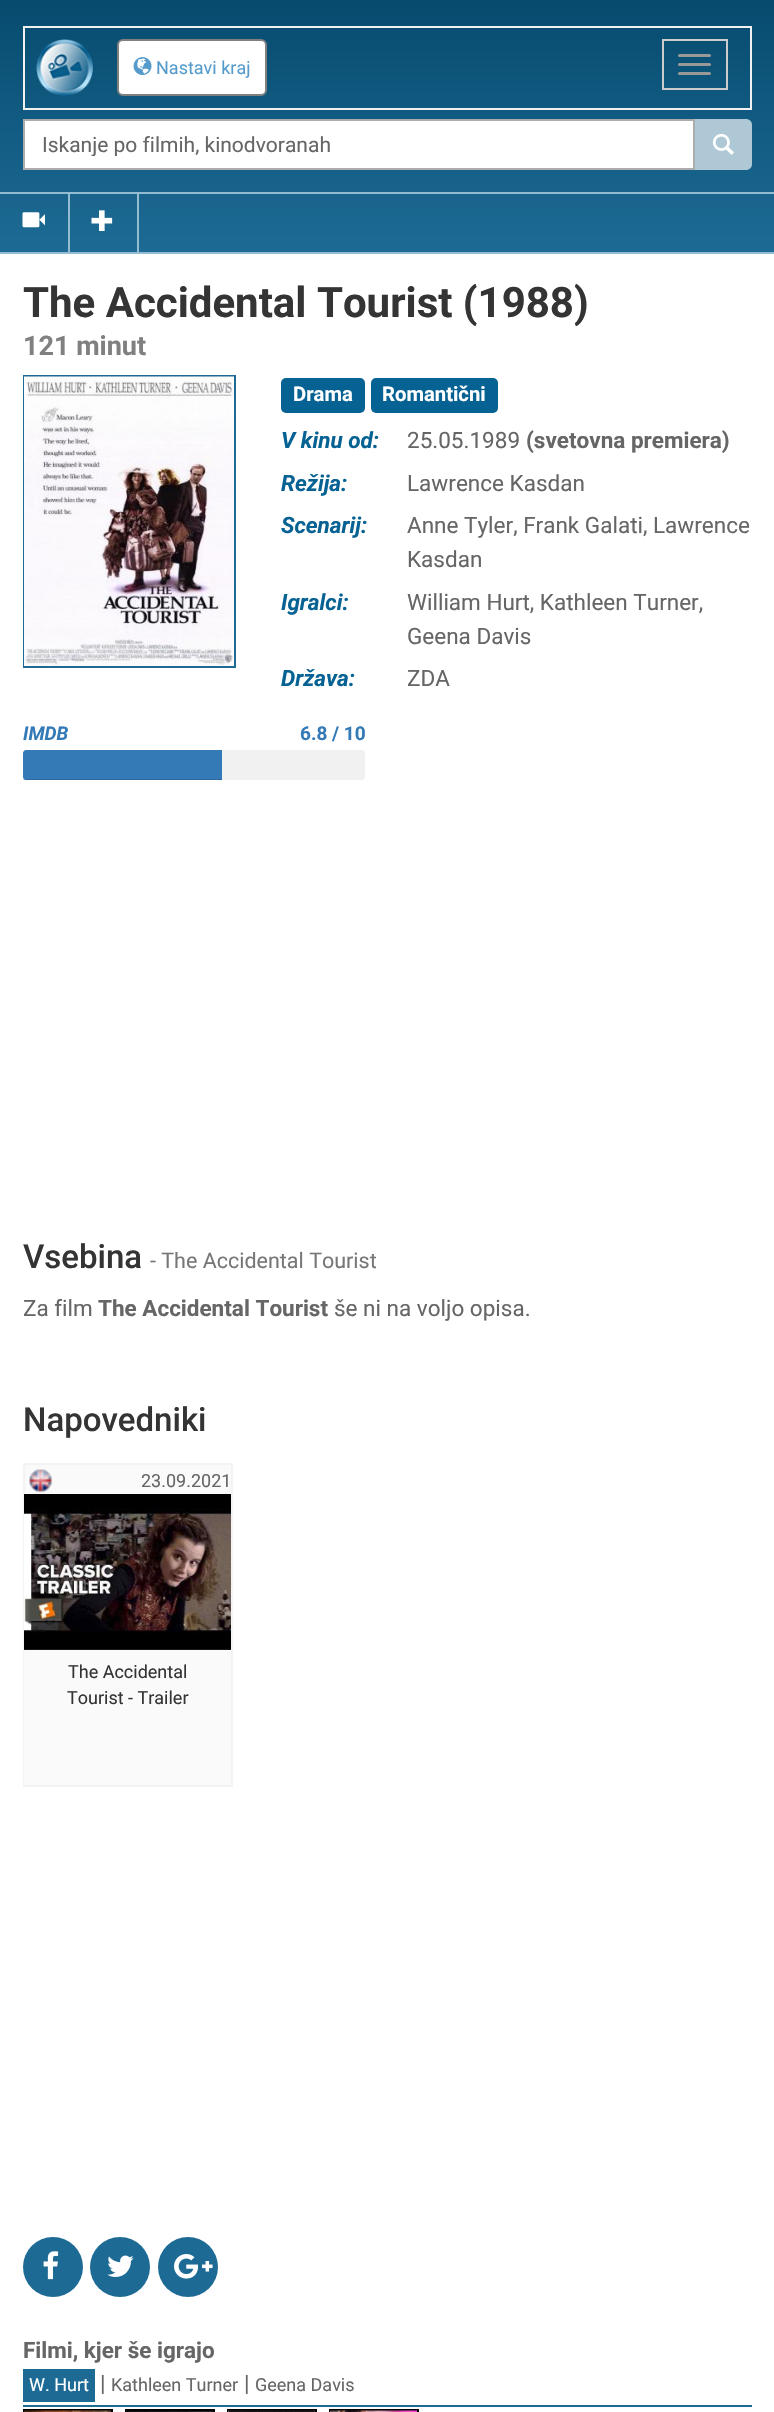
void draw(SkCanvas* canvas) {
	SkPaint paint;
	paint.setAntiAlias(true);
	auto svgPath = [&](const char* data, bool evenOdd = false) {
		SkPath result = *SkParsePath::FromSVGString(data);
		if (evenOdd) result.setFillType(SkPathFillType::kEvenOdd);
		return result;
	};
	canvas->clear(0xffffffff);
	{
		const SkColor colors[] = {0xff074b6f, 0xff1d6b95};
		const float stops[] = {0, 1};
		const SkPoint ends[] = {{387, 0}, {387, 252}};
		paint.setShader(SkGradientShader::MakeLinear(ends, colors, stops, 2, SkTileMode::kClamp));
		paint.setAlpha(255);
	}
	canvas->drawRect(SkRect::MakeXYWH(0, 0, 774, 252), paint);
	paint.setShader(nullptr);
	paint.setColor(0xff94bcd1);
	canvas->drawRect(SkRect::MakeXYWH(0, 252, 774, 2), paint);
	paint.setStroke(true);
	paint.setStrokeWidth(2);
	paint.setColor(0xfff1f1f1);
	canvas->drawRect(SkRect::MakeXYWH(24, 27, 727, 82), paint);
	canvas->drawImageRect(SkImages::DeferredFromEncodedData(SkData::MakeFromFileName("img1.png")), SkRect::MakeXYWH(36, 39, 57, 57), SkSamplingOptions());
	paint.setStroke(false);
	paint.setColor(0xffffffff);
	canvas->drawRoundRect(SkRect::MakeXYWH(118, 40, 148, 55), 5, 5, paint);
	paint.setStroke(true);
	paint.setColor(0xff808080);
	canvas->drawRoundRect(SkRect::MakeXYWH(118, 40, 148, 55), 5, 5, paint);
	canvas->drawImageRect(SkImages::DeferredFromEncodedData(SkData::MakeFromFileName("img2.png")), SkRect::MakeXYWH(133, 57, 19, 18), SkSamplingOptions());
	SkFont f1(fontMgr->matchFamilyStyle("Roboto", SkFontStyle::Normal()), 18);
	f1.setSubpixel(true);
	paint.setStroke(false);
	paint.setColor(0xff559bcc);
	canvas->drawString("Nastavi kraj", 156, 74, f1, paint);
	paint.setStroke(true);
	paint.setColor(0xffcccccc);
	canvas->drawRect(SkRect::MakeXYWH(663, 40, 64, 49), paint);
	paint.setStroke(false);
	paint.setColor(0xff999999);
	canvas->drawRoundRect(SkRect::MakeXYWH(678, 54, 33, 3), 1.5, 1.5, paint);
	canvas->drawRoundRect(SkRect::MakeXYWH(678, 63, 33, 3), 1.5, 1.5, paint);
	canvas->drawRoundRect(SkRect::MakeXYWH(678, 72, 33, 3), 1.5, 1.5, paint);
	paint.setColor(0xffffffff);
	canvas->drawRect(SkRect::MakeXYWH(24, 120, 670, 49), paint);
	paint.setStroke(true);
	paint.setColor(0xffacacac);
	canvas->drawRect(SkRect::MakeXYWH(24, 120, 670, 49), paint);
	canvas->save();
	canvas->clipRect(SkRect::MakeXYWH(42, 132, 606, 24));
	SkFont f2(fontMgr->matchFamilyStyle("Roboto", SkFontStyle::Normal()), 21);
	f2.setSubpixel(true);
	paint.setStroke(false);
	paint.setColor(0xff666666);
	canvas->drawString("Iskanje po filmih, kinodvoranah", 42, 152, f2, paint);
	canvas->restore();
	paint.setColor(0xffaec8d6);
	canvas->drawPath(svgPath("M695 119H746C749.5 119 752 121.5 752 125V164C752 167.5 749.5 170 746 170H695Z"), paint);
	canvas->drawImageRect(SkImages::DeferredFromEncodedData(SkData::MakeFromFileName("img3.png")), SkRect::MakeXYWH(712, 133, 22, 22), SkSamplingOptions());
	paint.setColor(0xff94bcd1);
	canvas->drawRect(SkRect::MakeXYWH(0, 192, 774, 2), paint);
	canvas->drawRect(SkRect::MakeXYWH(68, 194, 2, 58), paint);
	canvas->drawImageRect(SkImages::DeferredFromEncodedData(SkData::MakeFromFileName("img4.png")), SkRect::MakeXYWH(22, 212, 23, 16), SkSamplingOptions());
	canvas->drawRect(SkRect::MakeXYWH(137, 194, 2, 58), paint);
	canvas->drawImageRect(SkImages::DeferredFromEncodedData(SkData::MakeFromFileName("img5.png")), SkRect::MakeXYWH(91, 210, 22, 21), SkSamplingOptions());
	SkFont f3(fontMgr->matchFamilyStyle("Roboto", SkFontStyle::Bold()), 42);
	f3.setSubpixel(true);
	paint.setColor(0xff343434);
	canvas->drawString("The Accidental Tourist (1988)", 23, 317, f3, paint);
	SkFont f4(fontMgr->matchFamilyStyle("Roboto", SkFontStyle::Bold()), 27);
	f4.setSubpixel(true);
	paint.setColor(0xff808080);
	canvas->drawString("121 minut", 23, 355, f4, paint);
	paint.setStroke(true);
	paint.setColor(0xff1d6b95);
	canvas->drawRect(SkRect::MakeXYWH(24, 376, 211, 291), paint);
	canvas->drawImageRect(SkImages::DeferredFromEncodedData(SkData::MakeFromFileName("img6.png")), SkRect::MakeXYWH(24, 376, 210, 290), SkSamplingOptions());
	paint.setStroke(false);
	paint.setColor(0xff076294);
	canvas->drawRoundRect(SkRect::MakeXYWH(281, 378, 84, 35), 5, 5, paint);
	SkFont f5(fontMgr->matchFamilyStyle("Roboto", SkFontStyle::Bold()), 20.25);
	f5.setSubpixel(true);
	paint.setColor(0xffffffff);
	canvas->drawString("Drama", 293, 401, f5, paint);
	paint.setColor(0xff076294);
	canvas->drawRoundRect(SkRect::MakeXYWH(371, 378, 127, 35), 5, 5, paint);
	paint.setColor(0xffffffff);
	canvas->drawString("Romantični", 382, 401, f5, paint);
	SkFont f6(fontMgr->matchFamilyStyle("Roboto", SkFontStyle::BoldItalic()), 22.5);
	f6.setSubpixel(true);
	paint.setColor(0xff076294);
	canvas->drawString("V kinu od:", 281, 448, f6, paint);
	SkFont f7(fontMgr->matchFamilyStyle("Roboto", SkFontStyle::Normal()), 22.5);
	f7.setSubpixel(true);
	paint.setColor(0xff666666);
	canvas->drawString("25.05.1989", 407, 448, f7, paint);
	SkFont f8(fontMgr->matchFamilyStyle("Roboto", SkFontStyle::Bold()), 22.5);
	f8.setSubpixel(true);
	canvas->drawString("(svetovna premiera)", 526, 448, f8, paint);
	paint.setColor(0xff076294);
	canvas->drawString("Režija:", 281, 491, f6, paint);
	paint.setColor(0xff666666);
	canvas->drawString("Lawrence Kasdan", 407, 491, f7, paint);
	paint.setColor(0xff076294);
	canvas->drawString("Scenarij:", 281, 533, f6, paint);
	paint.setColor(0xff666666);
	canvas->drawString("Anne Tyler, Frank Galati, Lawrence", 407, 533, f7, paint);
	canvas->drawString("Kasdan", 407, 567, f7, paint);
	paint.setColor(0xff076294);
	canvas->drawString("Igralci:", 281, 610, f6, paint);
	paint.setColor(0xff666666);
	canvas->drawString("William Hurt, Kathleen Turner,", 407, 610, f7, paint);
	canvas->drawString("Geena Davis", 407, 644, f7, paint);
	paint.setColor(0xff076294);
	canvas->drawString("Država:", 281, 686, f6, paint);
	paint.setColor(0xff666666);
	canvas->drawString("ZDA", 407, 686, f7, paint);
	SkFont f9(fontMgr->matchFamilyStyle("Roboto", SkFontStyle::BoldItalic()), 19);
	f9.setSubpixel(true);
	paint.setColor(0xff337ab7);
	canvas->drawString("IMDB", 23, 740, f9, paint);
	SkFont f10(fontMgr->matchFamilyStyle("Roboto", SkFontStyle::Bold()), 19);
	f10.setSubpixel(true);
	canvas->drawString("6.8 / 10", 300, 740, f10, paint);
	paint.setColor(0xfff1f1f1);
	canvas->drawRoundRect(SkRect::MakeXYWH(23, 750, 342, 30), 3, 3, paint);
	paint.setColor(0xff337ab7);
	canvas->drawPath(svgPath("M26 750H222V780H26C24.5 780 23 778.5 23 777V753C23 751.5 24.5 750 26 750Z"), paint);
	paint.setColor(0x26000000);
	canvas->drawRect(SkRect::MakeXYWH(23, 779, 199, 1), paint);
	SkFont f11(fontMgr->matchFamilyStyle("Roboto", SkFontStyle(500, SkFontStyle::kNormal_Width, SkFontStyle::kUpright_Slant)), 33);
	f11.setSubpixel(true);
	paint.setColor(0xff343434);
	canvas->drawString("Vsebina", 23, 1268, f11, paint);
	SkFont f12(fontMgr->matchFamilyStyle("Roboto", SkFontStyle::Normal()), 21.5);
	f12.setSubpixel(true);
	paint.setColor(0xff777777);
	canvas->drawString("- The Accidental Tourist", 150, 1268, f12, paint);
	paint.setColor(0xff666666);
	canvas->drawString("Za film", 23, 1316, f7, paint);
	canvas->drawString("The Accidental Tourist", 98, 1316, f8, paint);
	canvas->drawString("še ni na voljo opisa.", 334, 1316, f7, paint);
	paint.setColor(0xff343434);
	canvas->drawString("Napovedniki", 23, 1431, f11, paint);
	paint.setColor(0xfffafafa);
	canvas->drawRect(SkRect::MakeXYWH(25, 1465, 206, 185), paint);
	paint.setStroke(true);
	paint.setColor(0xfff3f3f3);
	canvas->drawRect(SkRect::MakeXYWH(24, 1464, 208, 322), paint);
	canvas->drawImageRect(SkImages::DeferredFromEncodedData(SkData::MakeFromFileName("img7.png")), SkRect::MakeXYWH(28, 1468, 25, 25), SkSamplingOptions());
	paint.setStroke(false);
	paint.setColor(0xff666666);
	canvas->drawString("23.09.2021", 141, 1487, f1, paint);
	canvas->drawImageRect(SkImages::DeferredFromEncodedData(SkData::MakeFromFileName("img8.png")), SkRect::MakeXYWH(24, 1494, 207, 156), SkSamplingOptions());
	paint.setColor(0xfffafafa);
	canvas->drawRect(SkRect::MakeXYWH(24, 1650, 207, 135), paint);
	paint.setColor(0xff343434);
	canvas->drawString("The Accidental", 68, 1678, f1, paint);
	canvas->drawString("Tourist - Trailer", 67, 1704, f1, paint);
	paint.setColor(0xff1d6b95);
	canvas->drawCircle(53, 2267, 30, paint);
	canvas->drawImageRect(SkImages::DeferredFromEncodedData(SkData::MakeFromFileName("img9.png")), SkRect::MakeXYWH(43, 2251, 16, 29), SkSamplingOptions());
	canvas->drawCircle(120, 2267, 30, paint);
	canvas->drawImageRect(SkImages::DeferredFromEncodedData(SkData::MakeFromFileName("img10.png")), SkRect::MakeXYWH(107, 2255, 27, 22), SkSamplingOptions());
	canvas->drawCircle(188, 2267, 30, paint);
	canvas->drawImageRect(SkImages::DeferredFromEncodedData(SkData::MakeFromFileName("img11.png")), SkRect::MakeXYWH(174, 2254, 39, 25), SkSamplingOptions());
	paint.setColor(0xff666666);
	canvas->drawString("Filmi, kjer še igrajo", 23, 2358, f8, paint);
	paint.setColor(0xff1d6b95);
	canvas->drawRect(SkRect::MakeXYWH(23, 2405, 729, 2), paint);
	canvas->drawRect(SkRect::MakeXYWH(23, 2369, 72, 33), paint);
	paint.setColor(0xffffffff);
	canvas->drawString("W. Hurt", 29, 2391, f1, paint);
	paint.setColor(0xff666666);
	canvas->drawString("|", 100, 2391, f7, paint);
	canvas->drawString("Kathleen Turner", 111, 2391, f1, paint);
	canvas->drawString("|", 244, 2391, f7, paint);
	canvas->drawString("Geena Davis", 255, 2391, f1, paint);
	paint.setStroke(true);
	paint.setColor(0xff000000);
	canvas->drawRect(SkRect::MakeXYWH(24, 2410, 88, 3), paint);
	canvas->drawImageRect(SkImages::DeferredFromEncodedData(SkData::MakeFromFileName("img12.png")), SkRect::MakeXYWH(24, 2410, 87, 2), SkSamplingOptions());
	canvas->drawRect(SkRect::MakeXYWH(126, 2410, 88, 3), paint);
	canvas->drawImageRect(SkImages::DeferredFromEncodedData(SkData::MakeFromFileName("img13.png")), SkRect::MakeXYWH(126, 2410, 87, 2), SkSamplingOptions());
	canvas->drawRect(SkRect::MakeXYWH(228, 2410, 88, 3), paint);
	canvas->drawImageRect(SkImages::DeferredFromEncodedData(SkData::MakeFromFileName("img14.png")), SkRect::MakeXYWH(228, 2410, 87, 2), SkSamplingOptions());
	canvas->drawRect(SkRect::MakeXYWH(330, 2410, 88, 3), paint);
	canvas->drawImageRect(SkImages::DeferredFromEncodedData(SkData::MakeFromFileName("img15.png")), SkRect::MakeXYWH(330, 2410, 87, 2), SkSamplingOptions());
}
